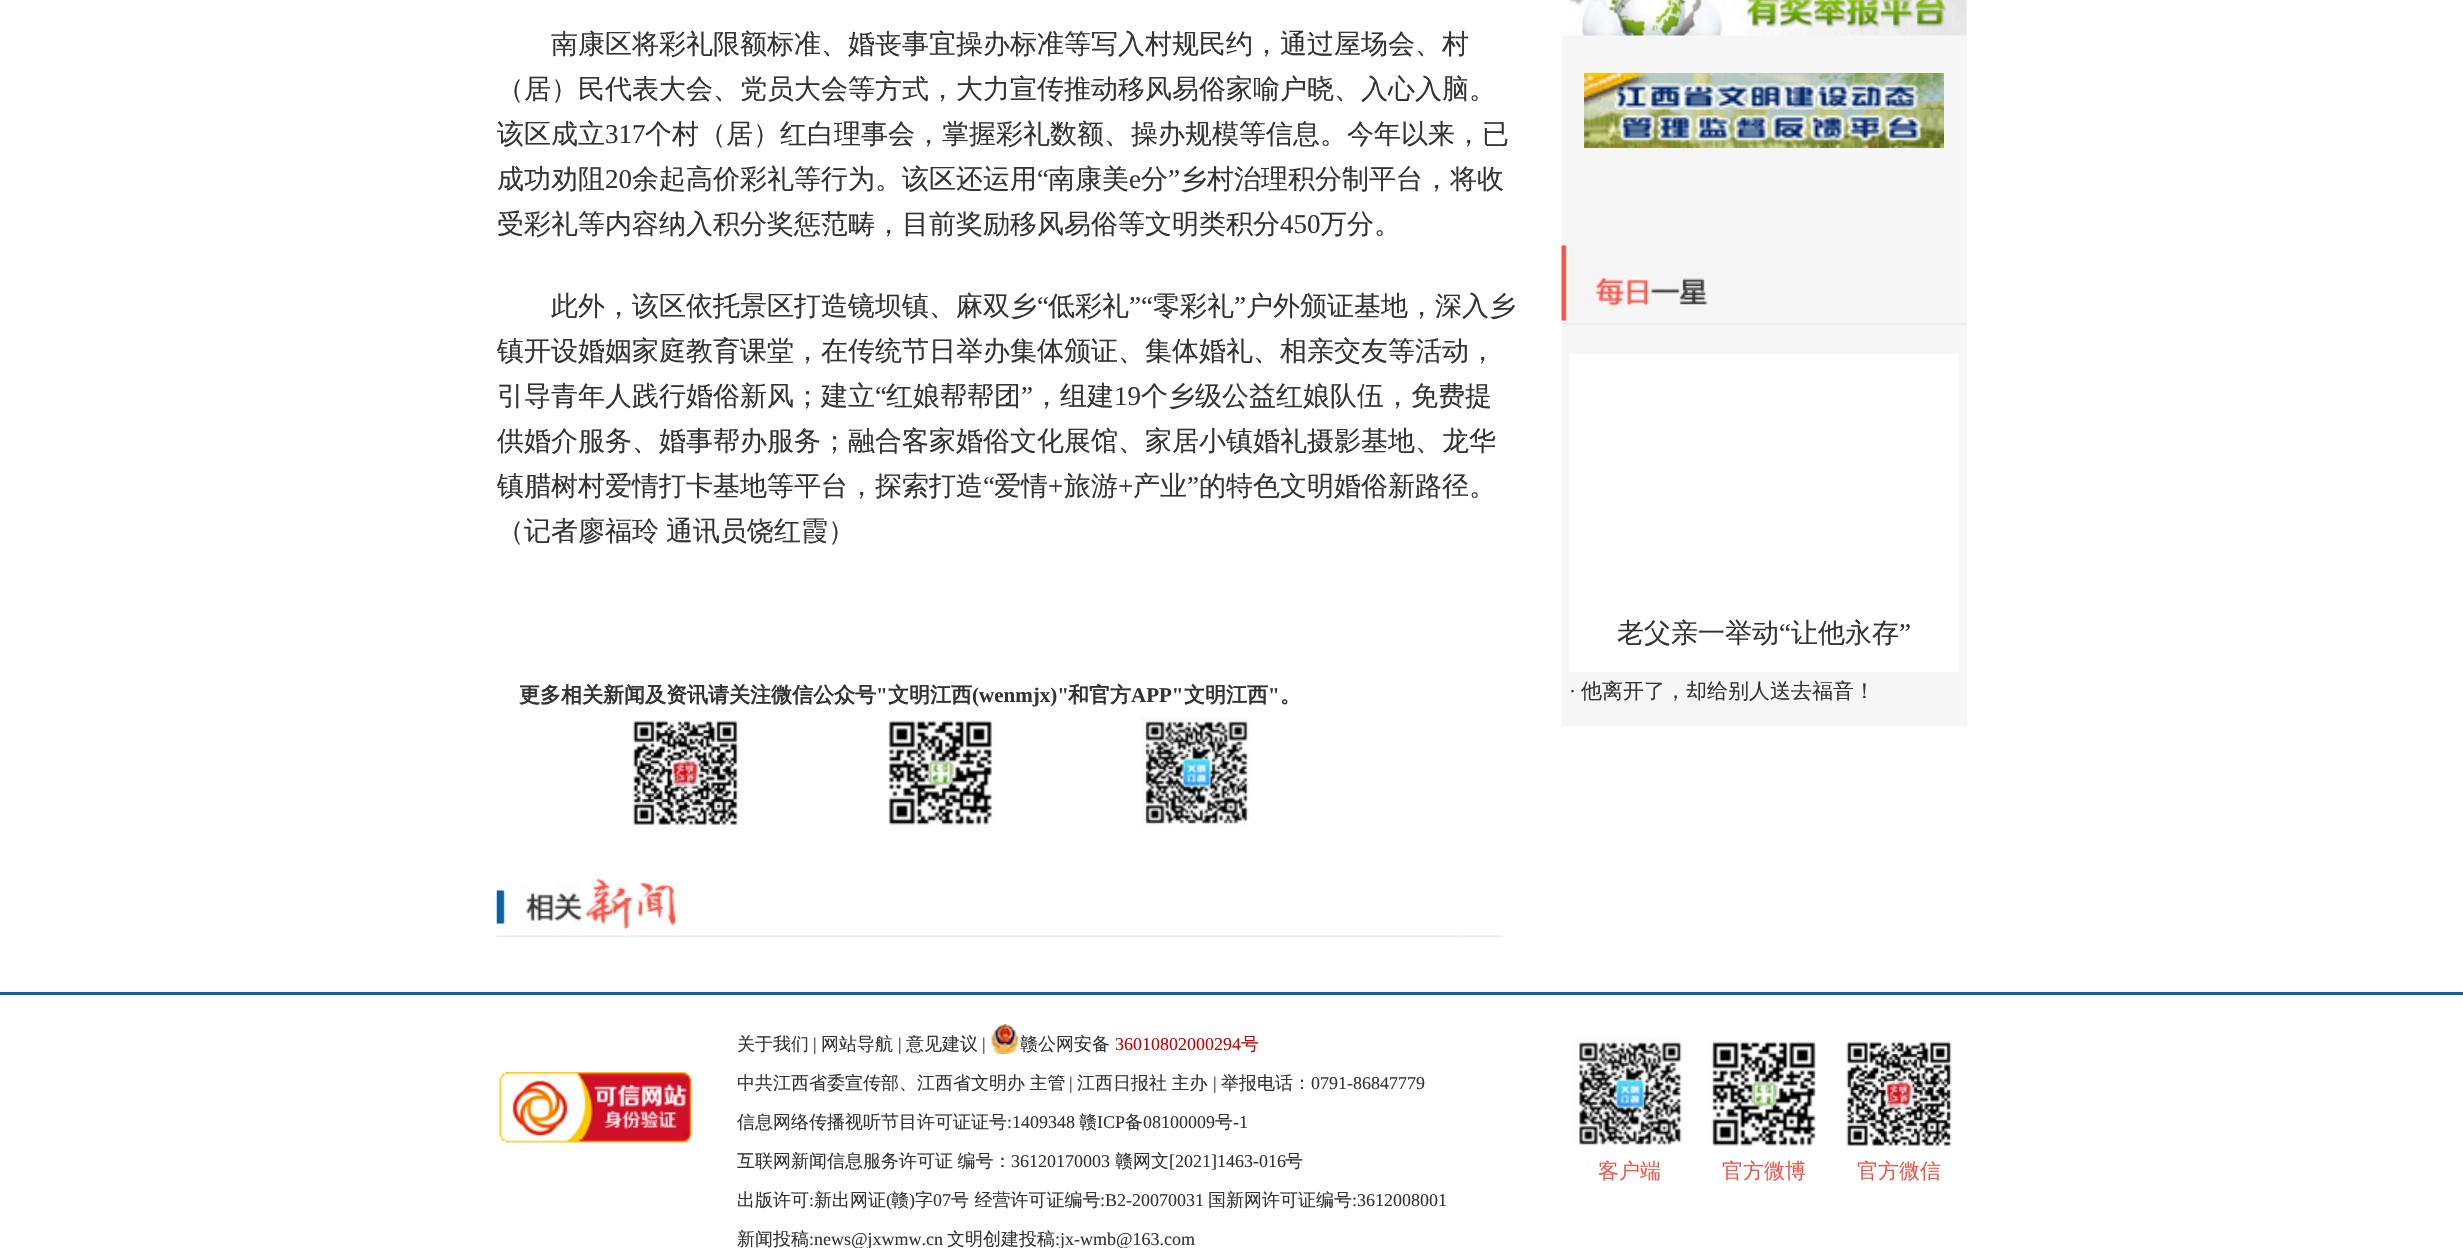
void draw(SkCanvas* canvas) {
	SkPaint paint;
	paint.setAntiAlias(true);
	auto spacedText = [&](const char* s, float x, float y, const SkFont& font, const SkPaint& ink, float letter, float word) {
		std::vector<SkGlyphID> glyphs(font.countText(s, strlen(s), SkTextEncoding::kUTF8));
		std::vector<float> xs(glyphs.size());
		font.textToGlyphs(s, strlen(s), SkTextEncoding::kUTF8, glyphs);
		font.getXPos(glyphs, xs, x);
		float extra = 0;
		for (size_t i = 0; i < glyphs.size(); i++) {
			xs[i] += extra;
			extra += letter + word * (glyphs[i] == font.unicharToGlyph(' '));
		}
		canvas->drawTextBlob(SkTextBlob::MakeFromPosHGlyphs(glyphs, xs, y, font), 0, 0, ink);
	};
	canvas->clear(0xffffffff);
	SkFont f1(fontMgr->matchFamilyStyle("WenQuanYi Zen Hei", SkFontStyle(500, SkFontStyle::kNormal_Width, SkFontStyle::kUpright_Slant)), 27);
	f1.setSubpixel(true);
	paint.setColor(0xff333333);
	canvas->drawString("南康区将彩礼限额标准、婚丧事宜操办标准等写入村规民约，通过屋场会、村", 551, 53, f1, paint);
	canvas->drawString("（居）民代表大会、党员大会等方式，大力宣传推动移风易俗家喻户晓、入心入脑。", 497, 98, f1, paint);
	canvas->drawString("该区成立", 497, 143, f1, paint);
	SkFont f2(fontMgr->matchFamilyStyle("Liberation Serif", SkFontStyle::Normal()), 27);
	f2.setSubpixel(true);
	canvas->drawString("317", 605, 143, f2, paint);
	canvas->drawString("个村（居）红白理事会，掌握彩礼数额、操办规模等信息。今年以来，已", 645, 143, f1, paint);
	canvas->drawString("成功劝阻", 497, 188, f1, paint);
	canvas->drawString("20", 605, 188, f2, paint);
	canvas->drawString("余起高价彩礼等行为。该区还运用", 632, 188, f1, paint);
	canvas->drawString("“", 1037, 188, f2, paint);
	canvas->drawString("南康美", 1048, 188, f1, paint);
	canvas->drawString("分", 1141, 188, f1, paint);
	canvas->drawString("”", 1168, 188, f2, paint);
	canvas->drawString("乡村治理积分制平台，将收", 1180, 188, f1, paint);
	canvas->drawString("e", 1129, 188, f2, paint);
	canvas->drawString("受彩礼等内容纳入积分奖惩范畴，目前奖励移风易俗等文明类积分", 497, 233, f1, paint);
	canvas->drawString("450", 1280, 233, f2, paint);
	canvas->drawString("万分。", 1320, 233, f1, paint);
	canvas->drawString("此外，该区依托景区打造镜坝镇、麻双乡", 551, 315, f1, paint);
	canvas->drawString("“", 1037, 315, f2, paint);
	canvas->drawString("低彩礼", 1048, 315, f1, paint);
	canvas->drawString("”“", 1129, 315, f2, paint);
	canvas->drawString("零彩礼", 1153, 315, f1, paint);
	canvas->drawString("”", 1234, 315, f2, paint);
	canvas->drawString("户外颁证基地，深入乡", 1246, 315, f1, paint);
	canvas->drawString("镇开设婚姻家庭教育课堂，在传统节日举办集体颁证、集体婚礼、相亲交友等活动，", 497, 360, f1, paint);
	canvas->drawString("引导青年人践行婚俗新风；建立", 497, 405, f1, paint);
	canvas->drawString("“", 875, 405, f2, paint);
	canvas->drawString("红娘帮帮团", 886, 405, f1, paint);
	canvas->drawString("”", 1021, 405, f2, paint);
	canvas->drawString("，组建", 1033, 405, f1, paint);
	canvas->drawString("19", 1114, 405, f2, paint);
	canvas->drawString("个乡级公益红娘队伍，免费提", 1141, 405, f1, paint);
	canvas->drawString("供婚介服务、婚事帮办服务；融合客家婚俗文化展馆、家居小镇婚礼摄影基地、龙华", 497, 450, f1, paint);
	canvas->drawString("镇腊树村爱情打卡基地等平台，探索打造", 497, 495, f1, paint);
	canvas->drawString("“", 983, 495, f2, paint);
	canvas->drawString("爱情", 994, 495, f1, paint);
	canvas->drawString("+", 1048, 495, f2, paint);
	canvas->drawString("旅游", 1064, 495, f1, paint);
	canvas->drawString("+", 1118, 495, f2, paint);
	canvas->drawString("产业", 1133, 495, f1, paint);
	canvas->drawString("”", 1187, 495, f2, paint);
	canvas->drawString("的特色文明婚俗新路径。", 1199, 495, f1, paint);
	spacedText("（记者廖福玲 通讯员饶红霞）", 497, 540, f1, paint, 0, -1);
	SkFont f3(fontMgr->matchFamilyStyle("WenQuanYi Zen Hei", SkFontStyle::Bold()), 21);
	f3.setSubpixel(true);
	canvas->drawString("更多相关新闻及资讯请关注微信公众号", 519, 702, f3, paint);
	SkFont f4(fontMgr->matchFamilyStyle("Liberation Serif", SkFontStyle::Bold()), 21);
	f4.setSubpixel(true);
	canvas->drawString("\"", 876, 702, f4, paint);
	canvas->drawString("文明江西", 888, 702, f3, paint);
	canvas->drawString("(wenmjx)\"", 972, 702, f4, paint);
	canvas->drawString("和官方", 1068, 702, f3, paint);
	canvas->drawString("APP\"", 1131, 702, f4, paint);
	canvas->drawString("文明江西", 1184, 702, f3, paint);
	canvas->drawString("\"", 1268, 702, f4, paint);
	canvas->drawString("。", 1280, 702, f3, paint);
	canvas->drawImageRect(SkImages::DeferredFromEncodedData(SkData::MakeFromFileName("img1.png")), SkRect::MakeXYWH(632, 720, 107, 106), SkSamplingOptions());
	canvas->drawImageRect(SkImages::DeferredFromEncodedData(SkData::MakeFromFileName("img2.png")), SkRect::MakeXYWH(888, 720, 105, 105), SkSamplingOptions());
	canvas->drawImageRect(SkImages::DeferredFromEncodedData(SkData::MakeFromFileName("img3.png")), SkRect::MakeXYWH(1141, 718, 108, 108), SkSamplingOptions());
	canvas->drawImageRect(SkImages::DeferredFromEncodedData(SkData::MakeFromFileName("img4.png")), SkRect::MakeXYWH(496, 871, 1006, 67), SkSamplingOptions());
	paint.setColor(0xfff6f6f6);
	canvas->drawRect(SkRect::MakeXYWH(1562, 0, 405, 726), paint);
	canvas->drawImageRect(SkImages::DeferredFromEncodedData(SkData::MakeFromFileName("img5.png")), SkRect::MakeXYWH(1562, 0, 405, 36), SkSamplingOptions());
	canvas->drawImageRect(SkImages::DeferredFromEncodedData(SkData::MakeFromFileName("img6.png")), SkRect::MakeXYWH(1584, 73, 360, 75), SkSamplingOptions());
	paint.setColor(0xffebebeb);
	canvas->drawRect(SkRect::MakeXYWH(1562, 323, 405, 2), paint);
	canvas->drawImageRect(SkImages::DeferredFromEncodedData(SkData::MakeFromFileName("img7.png")), SkRect::MakeXYWH(1561, 245, 147, 77), SkSamplingOptions());
	paint.setColor(0xffffffff);
	canvas->drawRect(SkRect::MakeXYWH(1569, 354, 390, 318), paint);
	paint.setColor(0xff333333);
	canvas->drawString("老父亲一举动", 1617, 642, f1, paint);
	canvas->drawString("“", 1779, 642, f2, paint);
	canvas->drawString("让他永存", 1791, 642, f1, paint);
	canvas->drawString("”", 1899, 642, f2, paint);
	SkFont f5(fontMgr->matchFamilyStyle("Liberation Serif", SkFontStyle::Normal()), 21);
	f5.setSubpixel(true);
	canvas->drawString("·", 1569, 698, f5, paint);
	SkFont f6(fontMgr->matchFamilyStyle("WenQuanYi Zen Hei", SkFontStyle(500, SkFontStyle::kNormal_Width, SkFontStyle::kUpright_Slant)), 21);
	f6.setSubpixel(true);
	canvas->drawString("他离开了，却给别人送去福音！", 1581, 698, f6, paint);
	paint.setColor(0xff0e61a5);
	canvas->drawRect(SkRect::MakeXYWH(0, 992, 2463, 3), paint);
	canvas->drawImageRect(SkImages::DeferredFromEncodedData(SkData::MakeFromFileName("img8.png")), SkRect::MakeXYWH(499, 1072, 193, 71), SkSamplingOptions());
	SkFont f7(fontMgr->matchFamilyStyle("WenQuanYi Zen Hei", SkFontStyle(500, SkFontStyle::kNormal_Width, SkFontStyle::kUpright_Slant)), 18);
	f7.setSubpixel(true);
	paint.setColor(0xff333333);
	canvas->drawString("关于我们", 737, 1050, f7, paint);
	SkFont f8(fontMgr->matchFamilyStyle("Liberation Serif", SkFontStyle::Normal()), 18);
	f8.setSubpixel(true);
	canvas->drawString("|", 813, 1050, f8, paint);
	canvas->drawString("网站导航", 821, 1050, f7, paint);
	canvas->drawString("|", 898, 1050, f8, paint);
	canvas->drawString("意见建议", 906, 1050, f7, paint);
	canvas->drawString("|", 982, 1050, f8, paint);
	canvas->drawImageRect(SkImages::DeferredFromEncodedData(SkData::MakeFromFileName("img9.png")), SkRect::MakeXYWH(991, 1024, 28, 30), SkSamplingOptions());
	canvas->drawString("赣公网安备", 1020, 1050, f7, paint);
	paint.setColor(0xffcc0000);
	canvas->drawString("36010802000294", 1115, 1050, f8, paint);
	canvas->drawString("号", 1241, 1050, f7, paint);
	paint.setColor(0xff333333);
	spacedText("中共江西省委宣传部、江西省文明办 主管", 737, 1089, f7, paint, 0, -1);
	canvas->drawString("|", 1069, 1089, f8, paint);
	spacedText("江西日报社 主办", 1077, 1089, f7, paint, 0, -1);
	canvas->drawString("|", 1213, 1089, f8, paint);
	canvas->drawString("举报电话：", 1221, 1089, f7, paint);
	canvas->drawString("0791-86847779", 1311, 1089, f8, paint);
	canvas->drawString("信息网络传播视听节目许可证证号", 737, 1128, f7, paint);
	canvas->drawString(":1409348", 1007, 1128, f8, paint);
	canvas->drawString("赣", 1079, 1128, f7, paint);
	canvas->drawString("ICP", 1097, 1128, f8, paint);
	canvas->drawString("备", 1125, 1128, f7, paint);
	canvas->drawString("08100009", 1143, 1128, f8, paint);
	canvas->drawString("号", 1215, 1128, f7, paint);
	canvas->drawString("-1", 1233, 1128, f8, paint);
	spacedText("互联网新闻信息服务许可证 编号：", 737, 1167, f7, paint, 0, -1);
	canvas->drawString("36120170003", 1011, 1167, f8, paint);
	canvas->drawString("赣网文", 1115, 1167, f7, paint);
	canvas->drawString("[2021]1463-016", 1169, 1167, f8, paint);
	canvas->drawString("号", 1285, 1167, f7, paint);
	canvas->drawString("出版许可", 737, 1206, f7, paint);
	canvas->drawString(":", 809, 1206, f8, paint);
	canvas->drawString("新出网证", 814, 1206, f7, paint);
	canvas->drawString("(", 886, 1206, f8, paint);
	canvas->drawString("赣", 891, 1206, f7, paint);
	canvas->drawString(")", 909, 1206, f8, paint);
	canvas->drawString("字", 915, 1206, f7, paint);
	canvas->drawString("07", 933, 1206, f8, paint);
	canvas->drawString("号 经营许可证编号", 951, 1206, f7, paint);
	canvas->drawString(":B2-20070031", 1100, 1206, f8, paint);
	canvas->drawString("国新网许可证编号", 1208, 1206, f7, paint);
	canvas->drawString(":3612008001", 1352, 1206, f8, paint);
	canvas->drawString("新闻投稿", 737, 1245, f7, paint);
	canvas->drawString(":news@jxwmw.cn", 809, 1245, f8, paint);
	canvas->drawString("文明创建投稿", 947, 1245, f7, paint);
	canvas->drawString(":jx-wmb@163.com", 1055, 1245, f8, paint);
	canvas->drawImageRect(SkImages::DeferredFromEncodedData(SkData::MakeFromFileName("img10.png")), SkRect::MakeXYWH(1575, 1039, 107, 108), SkSamplingOptions());
	paint.setColor(0xfff75449);
	canvas->drawString("客户端", 1598, 1178, f6, paint);
	canvas->drawImageRect(SkImages::DeferredFromEncodedData(SkData::MakeFromFileName("img11.png")), SkRect::MakeXYWH(1711, 1041, 105, 105), SkSamplingOptions());
	canvas->drawString("官方微博", 1722, 1178, f6, paint);
	canvas->drawImageRect(SkImages::DeferredFromEncodedData(SkData::MakeFromFileName("img12.png")), SkRect::MakeXYWH(1845, 1041, 108, 106), SkSamplingOptions());
	canvas->drawString("官方微信", 1857, 1178, f6, paint);
}
